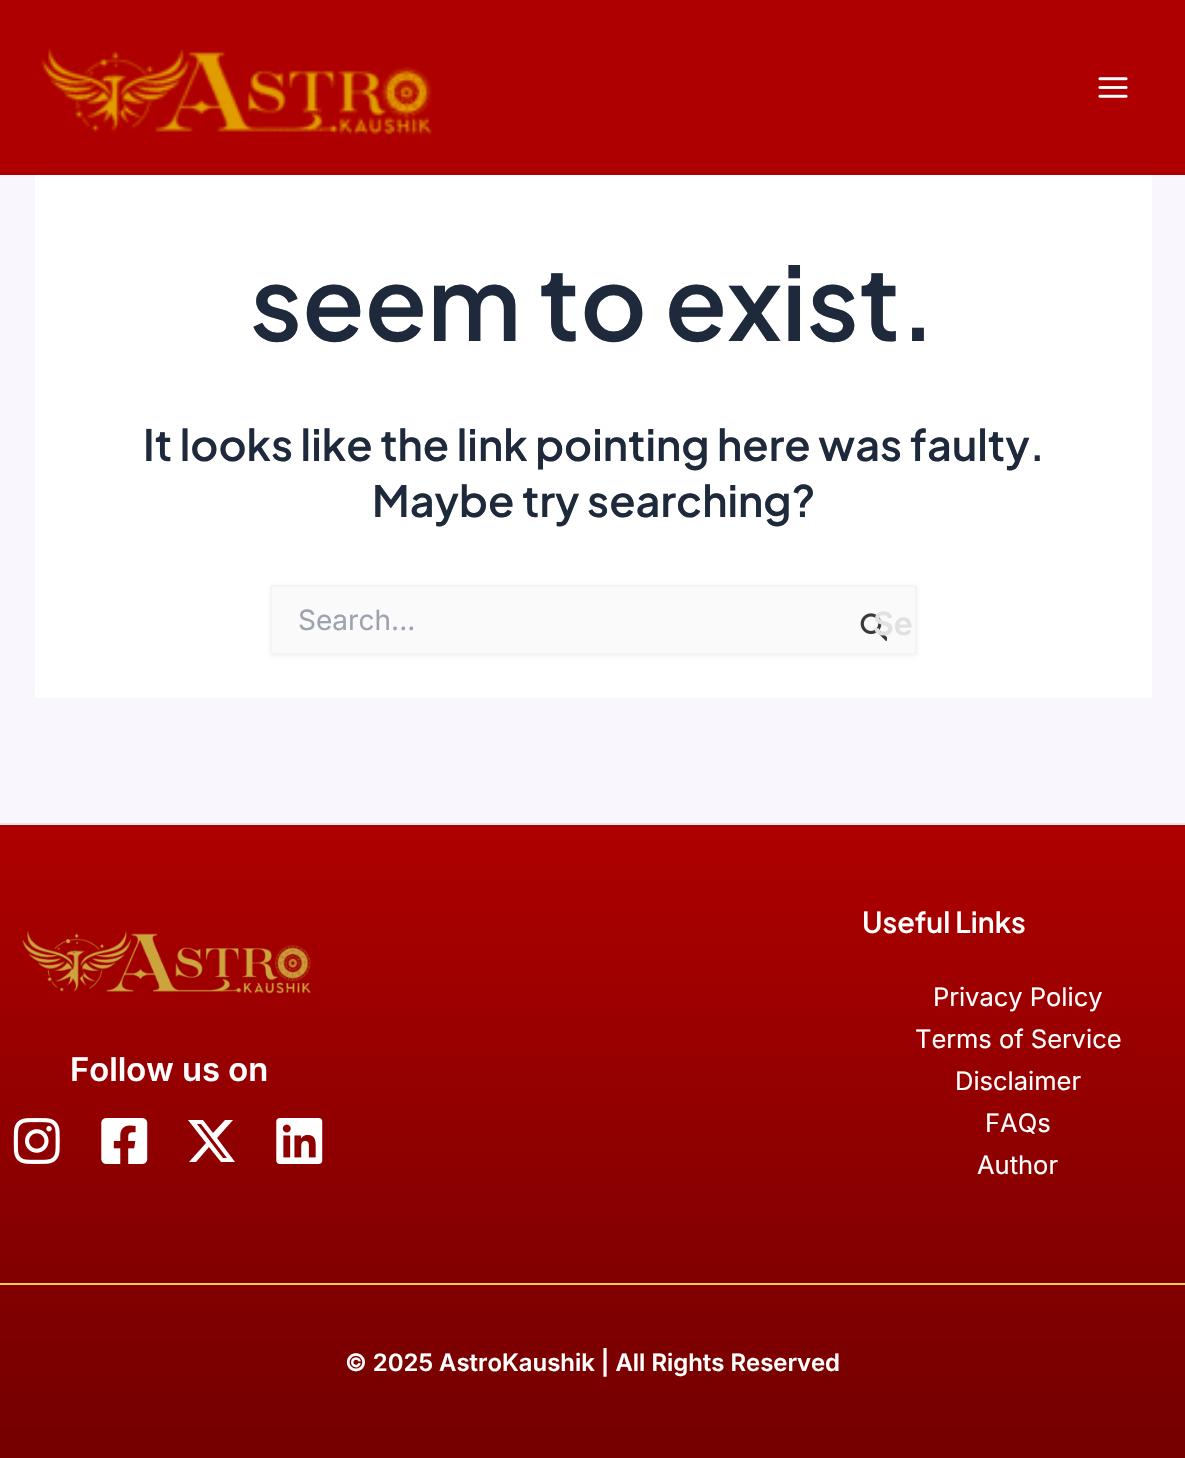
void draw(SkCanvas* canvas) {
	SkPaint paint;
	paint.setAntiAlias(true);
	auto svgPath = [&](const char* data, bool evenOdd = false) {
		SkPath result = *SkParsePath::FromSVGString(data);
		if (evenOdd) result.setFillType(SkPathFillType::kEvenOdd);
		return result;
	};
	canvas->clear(0xfff9f6fe);
	paint.setColor(0xffae0000);
	canvas->drawRect(SkRect::MakeXYWH(0, 0, 1185, 175), paint);
	canvas->drawImageRect(SkImages::DeferredFromEncodedData(SkData::MakeFromFileName("img1.png")), SkRect::MakeXYWH(41, 48, 392, 88), SkSamplingOptions());
	canvas->drawImageRect(SkImages::DeferredFromEncodedData(SkData::MakeFromFileName("img2.png")), SkRect::MakeXYWH(1098, 77, 30, 21), SkSamplingOptions());
	paint.setColor(0xffffffff);
	canvas->drawRect(SkRect::MakeXYWH(35, 175, 1117, 523), paint);
	SkFont f1(fontMgr->matchFamilyStyle("Plus Jakarta Sans", SkFontStyle(600, SkFontStyle::kNormal_Width, SkFontStyle::kUpright_Slant)), 102);
	f1.setSubpixel(true);
	paint.setColor(0xff1e293b);
	canvas->drawString("seem to exist.", 250, 341, f1, paint);
	SkFont f2(fontMgr->matchFamilyStyle("Plus Jakarta Sans", SkFontStyle(600, SkFontStyle::kNormal_Width, SkFontStyle::kUpright_Slant)), 43.1);
	f2.setSubpixel(true);
	canvas->drawString("It looks like the link pointing here was faulty.", 143, 461, f2, paint);
	canvas->drawString("Maybe try searching?", 372, 517, f2, paint);
	paint.setColor(0x0d000000);
	paint.setMaskFilter(SkMaskFilter::MakeBlur(kNormal_SkBlurStyle, 2));
	canvas->drawRoundRect(SkRect::MakeXYWH(270, 586, 647, 70), 4, 4, paint);
	paint.setMaskFilter(nullptr);
	paint.setColor(0xfffafafa);
	canvas->drawRoundRect(SkRect::MakeXYWH(271, 586, 645, 68), 3, 3, paint);
	paint.setStroke(true);
	paint.setStrokeWidth(2);
	paint.setColor(0xfff2f5f7);
	canvas->drawRoundRect(SkRect::MakeXYWH(271, 586, 645, 68), 3, 3, paint);
	SkFont f3(fontMgr->matchFamilyStyle("Inter", SkFontStyle::Normal()), 28);
	f3.setSubpixel(true);
	paint.setStroke(false);
	paint.setColor(0xff9ca3af);
	canvas->drawString("Search...", 298, 630, f3, paint);
	canvas->drawImageRect(SkImages::DeferredFromEncodedData(SkData::MakeFromFileName("img3.png")), SkRect::MakeXYWH(860, 613, 27, 29), SkSamplingOptions());
	SkFont f4(fontMgr->matchFamilyStyle("Inter", SkFontStyle(600, SkFontStyle::kNormal_Width, SkFontStyle::kUpright_Slant)), 32);
	f4.setSubpixel(true);
	paint.setColor(0xffe1e1e2);
	canvas->drawString("Se", 873, 635, f4, paint);
	{
		const SkColor colors[] = {0xffae0000, 0xff820000};
		const float stops[] = {0, 1};
		const SkPoint ends[] = {{593, 824}, {593, 1283}};
		paint.setShader(SkGradientShader::MakeLinear(ends, colors, stops, 2, SkTileMode::kClamp));
		paint.setAlpha(255);
	}
	canvas->drawRect(SkRect::MakeXYWH(0, 825, 1185, 458), paint);
	paint.setShader(nullptr);
	paint.setColor(0xffe6e6e6);
	canvas->drawRect(SkRect::MakeXYWH(0, 823, 1185, 2), paint);
	canvas->drawImageRect(SkImages::DeferredFromEncodedData(SkData::MakeFromFileName("img4.png")), SkRect::MakeXYWH(22, 931, 289, 63), SkSamplingOptions());
	SkFont f5(fontMgr->matchFamilyStyle("Inter", SkFontStyle(600, SkFontStyle::kNormal_Width, SkFontStyle::kUpright_Slant)), 32.75);
	f5.setSubpixel(true);
	paint.setColor(0xffffffff);
	canvas->drawString("Follow us on", 70, 1081, f5, paint);
	canvas->drawImageRect(SkImages::DeferredFromEncodedData(SkData::MakeFromFileName("img5.png")), SkRect::MakeXYWH(13, 1118, 47, 46), SkSamplingOptions());
	canvas->drawImageRect(SkImages::DeferredFromEncodedData(SkData::MakeFromFileName("img6.png")), SkRect::MakeXYWH(101, 1118, 47, 46), SkSamplingOptions());
	canvas->drawPath(svgPath("M225 1120H233L217 1138L235 1162H221L209 1147L196 1162H189L206 1143L188 1120H203L213 1133ZM223 1158H227L201 1124H197Z"), paint);
	canvas->drawImageRect(SkImages::DeferredFromEncodedData(SkData::MakeFromFileName("img7.png")), SkRect::MakeXYWH(276, 1118, 47, 46), SkSamplingOptions());
	SkFont f6(fontMgr->matchFamilyStyle("Plus Jakarta Sans", SkFontStyle(600, SkFontStyle::kNormal_Width, SkFontStyle::kUpright_Slant)), 28.75);
	f6.setSubpixel(true);
	canvas->drawString("Useful Links", 862, 933, f6, paint);
	SkFont f7(fontMgr->matchFamilyStyle("Inter", SkFontStyle::Normal()), 25.5);
	f7.setSubpixel(true);
	canvas->drawString("Privacy Policy", 933, 1006, f7, paint);
	canvas->drawString("Terms of Service", 915, 1048, f7, paint);
	canvas->drawString("Disclaimer", 955, 1090, f7, paint);
	canvas->drawString("FAQs", 985, 1132, f7, paint);
	canvas->drawString("Author", 977, 1174, f7, paint);
	{
		const SkColor colors[] = {0xff820000, 0xff740000};
		const float stops[] = {0, 0.99};
		const SkPoint ends[] = {{593, 1285}, {593, 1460}};
		paint.setShader(SkGradientShader::MakeLinear(ends, colors, stops, 2, SkTileMode::kClamp));
		paint.setAlpha(255);
	}
	canvas->drawRect(SkRect::MakeXYWH(0, 1285, 1185, 173), paint);
	paint.setShader(nullptr);
	paint.setColor(0xffffcd57);
	canvas->drawRect(SkRect::MakeXYWH(0, 1283, 1185, 2), paint);
	SkFont f8(fontMgr->matchFamilyStyle("Inter", SkFontStyle(600, SkFontStyle::kNormal_Width, SkFontStyle::kUpright_Slant)), 23.9);
	f8.setSubpixel(true);
	paint.setColor(0xffffffff);
	canvas->drawString("© 2025 AstroKaushik | All Rights Reserved", 345, 1371, f8, paint);
}
